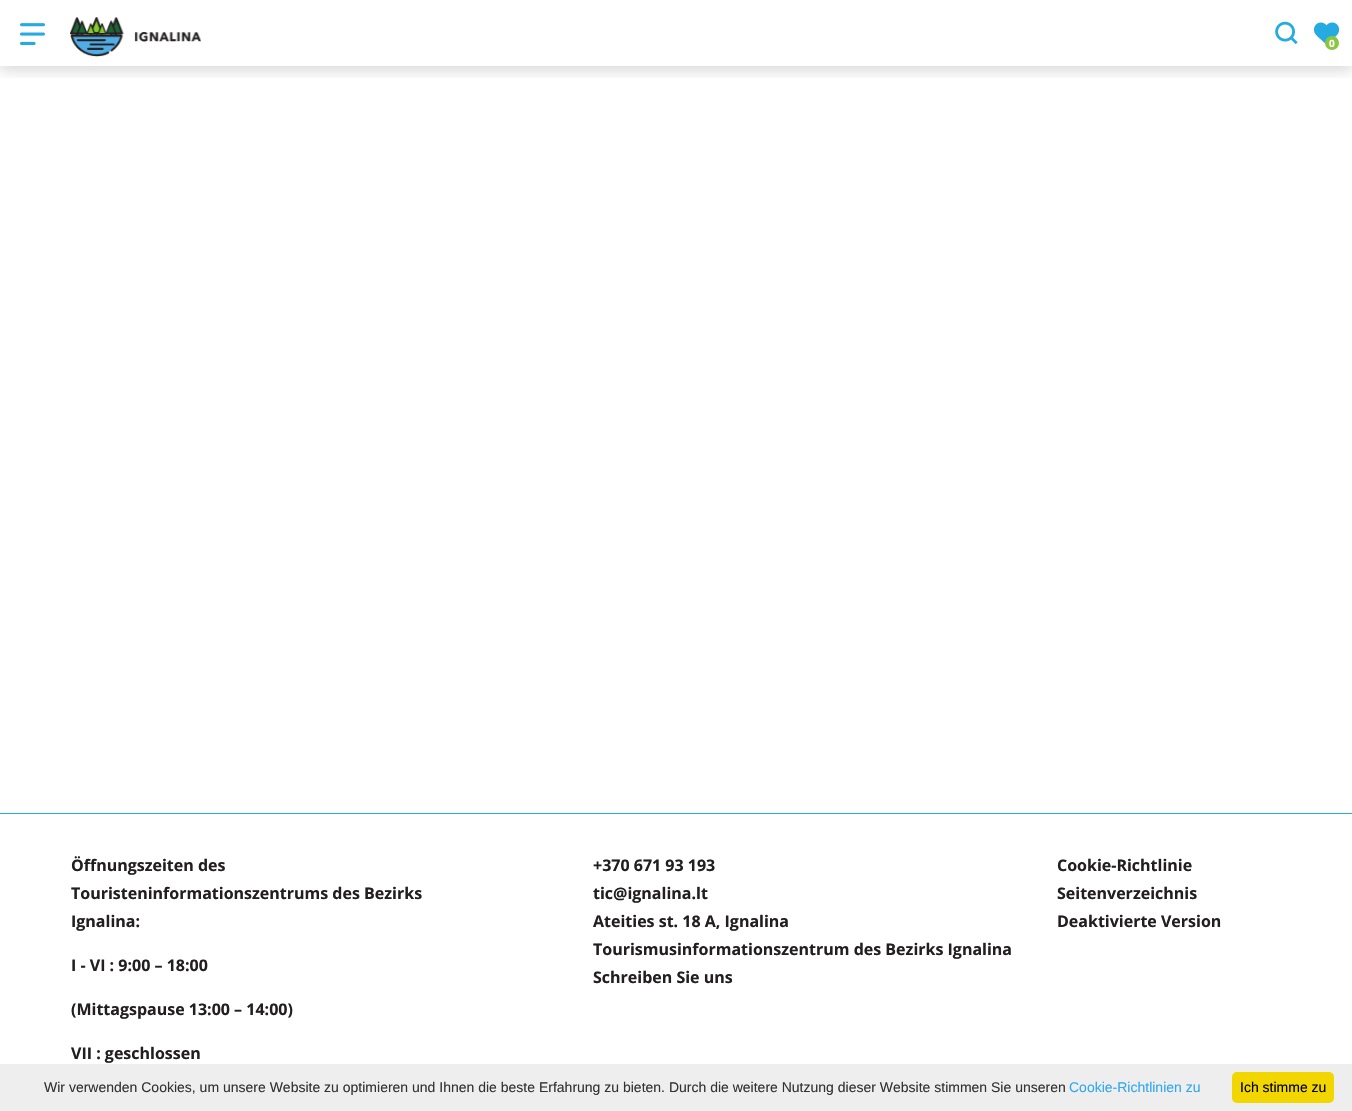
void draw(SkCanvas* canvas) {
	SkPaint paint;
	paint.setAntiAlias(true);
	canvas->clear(0xffffffff);
	canvas->save();
	canvas->clipRect(SkRect::MakeXYWH(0, 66, 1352, 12));
	paint.setColor(0x29000000);
	paint.setMaskFilter(SkMaskFilter::MakeBlur(kNormal_SkBlurStyle, 7));
	canvas->drawRect(SkRect::MakeXYWH(0, 4, 1352, 66), paint);
	paint.setMaskFilter(nullptr);
	canvas->restore();
	canvas->drawImageRect(SkImages::DeferredFromEncodedData(SkData::MakeFromFileName("img1.png")), SkRect::MakeXYWH(20, 23, 25, 22), SkSamplingOptions());
	canvas->drawImageRect(SkImages::DeferredFromEncodedData(SkData::MakeFromFileName("img2.png")), SkRect::MakeXYWH(70, 17, 131, 40), SkSamplingOptions());
	canvas->drawImageRect(SkImages::DeferredFromEncodedData(SkData::MakeFromFileName("img3.png")), SkRect::MakeXYWH(1275, 21, 23, 24), SkSamplingOptions());
	canvas->drawImageRect(SkImages::DeferredFromEncodedData(SkData::MakeFromFileName("img4.png")), SkRect::MakeXYWH(1314, 22, 26, 22), SkSamplingOptions());
	paint.setColor(0xff8cc63f);
	canvas->drawCircle(1332, 43, 7, paint);
	SkFont f1(fontMgr->matchFamilyStyle("Open Sans", SkFontStyle::Bold()), 10);
	f1.setSubpixel(true);
	paint.setColor(0xffffffff);
	canvas->drawString("0", 1329, 47, f1, paint);
	paint.setColor(0xff25aae1);
	canvas->drawRect(SkRect::MakeXYWH(0, 813, 1352, 1), paint);
	SkFont f2(fontMgr->matchFamilyStyle("Open Sans", SkFontStyle::Bold()), 16);
	f2.setSubpixel(true);
	paint.setColor(0xff231f20);
	canvas->drawString("Öffnungszeiten des", 71, 871, f2, paint);
	canvas->drawString("Touristeninformationszentrums des Bezirks", 71, 899, f2, paint);
	canvas->drawString("Ignalina:", 71, 927, f2, paint);
	canvas->drawString("I - VI : 9:00 – 18:00", 71, 971, f2, paint);
	canvas->drawString("(Mittagspause 13:00 – 14:00)", 71, 1015, f2, paint);
	canvas->drawString("VII : geschlossen", 71, 1059, f2, paint);
	canvas->drawString("+370 671 93 193", 593, 871, f2, paint);
	canvas->drawString("tic@ignalina.lt", 593, 899, f2, paint);
	canvas->drawString("Ateities st. 18 A, Ignalina", 593, 927, f2, paint);
	canvas->drawString("Tourismusinformationszentrum des Bezirks Ignalina", 593, 955, f2, paint);
	canvas->drawString("Schreiben Sie uns", 593, 983, f2, paint);
	canvas->drawString("Cookie-Richtlinie", 1057, 871, f2, paint);
	canvas->drawString("Seitenverzeichnis", 1057, 899, f2, paint);
	canvas->drawString("Deaktivierte Version", 1057, 927, f2, paint);
	paint.setColor(0xffeeeeee);
	canvas->drawRect(SkRect::MakeXYWH(0, 1064, 1352, 47), paint);
	SkFont f3(fontMgr->matchFamilyStyle("Liberation Sans", SkFontStyle::Normal()), 14);
	f3.setSubpixel(true);
	paint.setColor(0xff333333);
	canvas->drawString("Wir verwenden Cookies, um unsere Website zu optimieren und Ihnen die beste Erfahrung zu bieten. Durch die weitere Nutzung dieser Website stimmen Sie unseren", 44, 1092, f3, paint);
	paint.setColor(0xff31a8f0);
	canvas->drawString("Cookie-Richtlinien zu", 1069, 1092, f3, paint);
	paint.setColor(0xfff1d600);
	canvas->drawRoundRect(SkRect::MakeXYWH(1232, 1072, 102, 31), 5, 5, paint);
	paint.setColor(0xff000000);
	canvas->drawString("Ich stimme zu", 1240, 1092, f3, paint);
}
